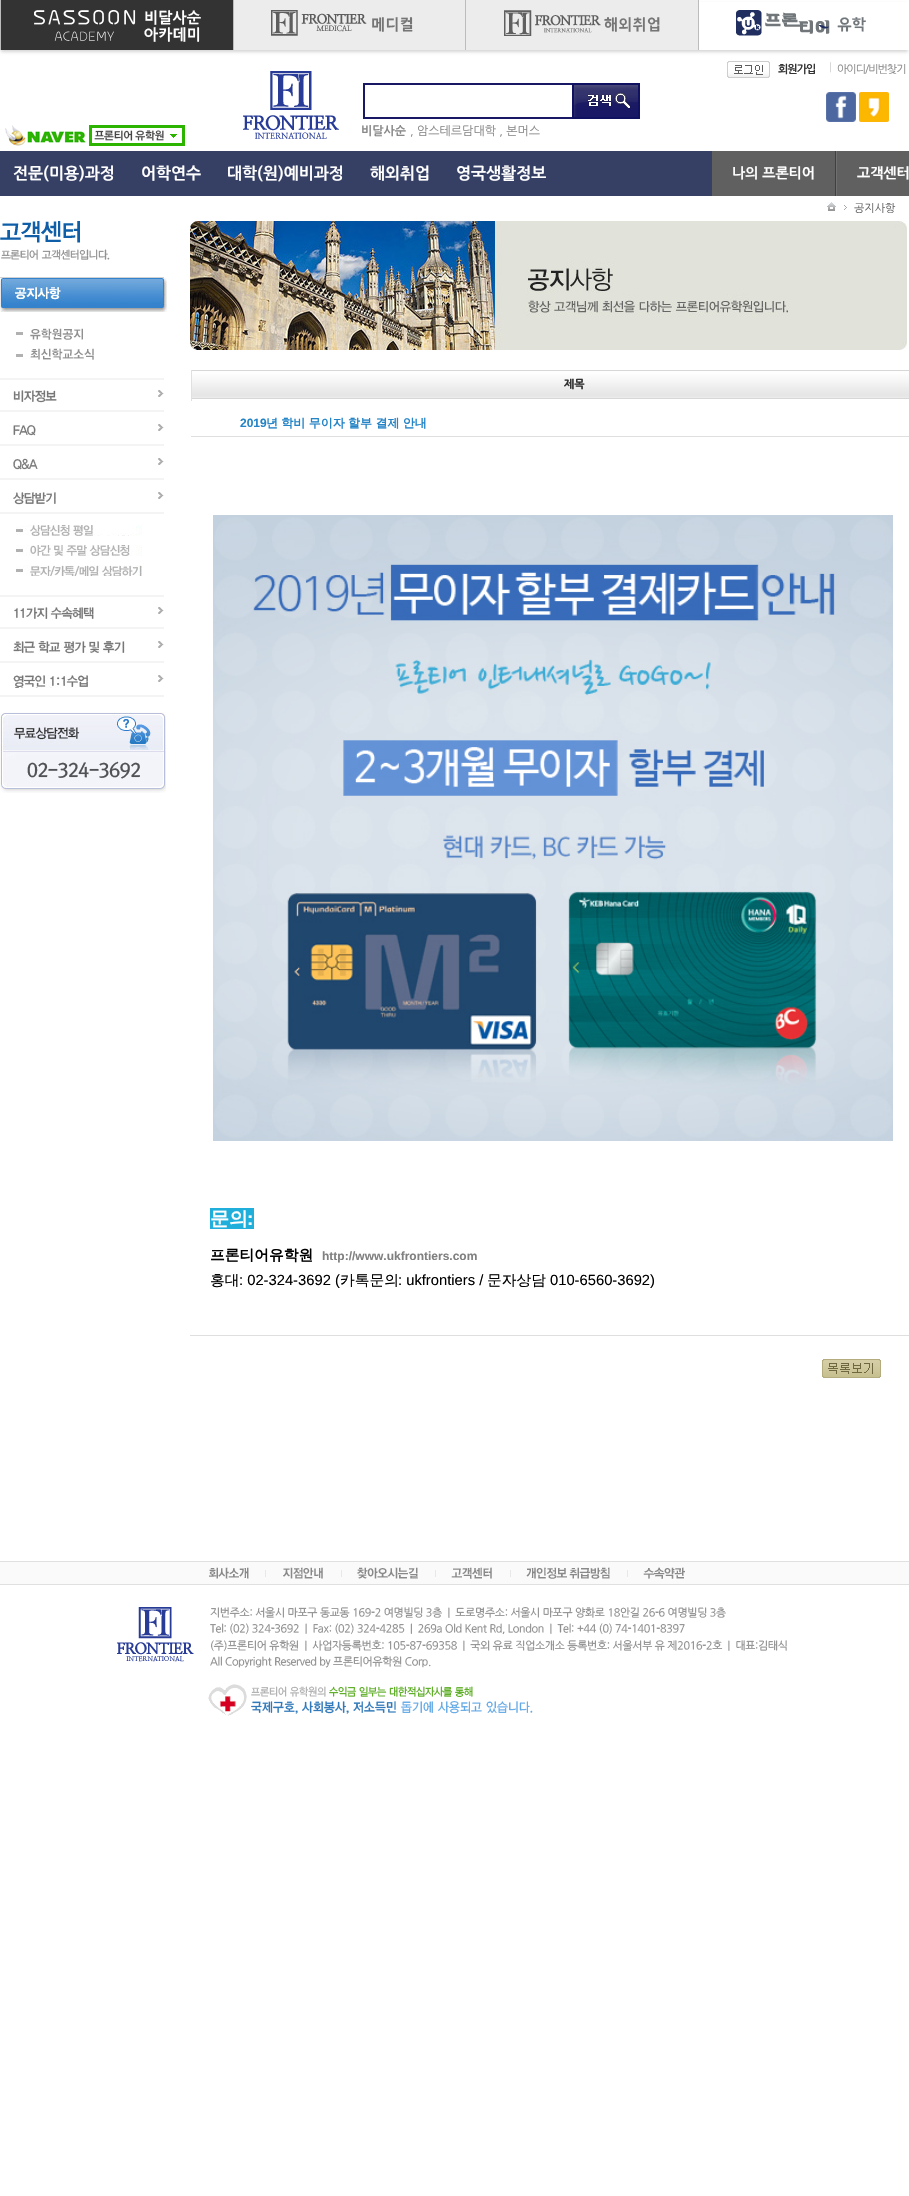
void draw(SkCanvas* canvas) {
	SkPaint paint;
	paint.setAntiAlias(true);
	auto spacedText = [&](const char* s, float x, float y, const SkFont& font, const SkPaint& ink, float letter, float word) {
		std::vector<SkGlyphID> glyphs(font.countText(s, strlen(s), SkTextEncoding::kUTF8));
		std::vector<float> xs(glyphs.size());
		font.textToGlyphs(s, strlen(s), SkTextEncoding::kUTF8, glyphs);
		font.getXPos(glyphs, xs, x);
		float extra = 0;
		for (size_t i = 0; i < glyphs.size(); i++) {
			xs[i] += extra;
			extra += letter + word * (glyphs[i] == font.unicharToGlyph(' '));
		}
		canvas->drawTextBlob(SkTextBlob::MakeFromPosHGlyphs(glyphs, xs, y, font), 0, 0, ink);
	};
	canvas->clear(0xffffffff);
	paint.setColor(0x29000000);
	paint.setMaskFilter(SkMaskFilter::MakeBlur(kNormal_SkBlurStyle, 1.5));
	canvas->drawRect(SkRect::MakeXYWH(1, 4, 907, 48), paint);
	paint.setMaskFilter(nullptr);
	paint.setColor(0xffececec);
	canvas->drawRect(SkRect::MakeXYWH(466, 0, 232, 50), paint);
	paint.setColor(0xff333333);
	canvas->drawRect(SkRect::MakeXYWH(1, 0, 232, 50), paint);
	paint.setColor(0xffbdbcbc);
	canvas->drawRect(SkRect::MakeXYWH(0, 0, 1, 50), paint);
	canvas->drawImageRect(SkImages::DeferredFromEncodedData(SkData::MakeFromFileName("img1.png")), SkRect::MakeXYWH(34, 10, 167, 32), SkSamplingOptions());
	paint.setColor(0xffececec);
	canvas->drawRect(SkRect::MakeXYWH(234, 0, 231, 50), paint);
	paint.setColor(0xffbdbcbc);
	canvas->drawRect(SkRect::MakeXYWH(233, 0, 1, 50), paint);
	canvas->drawImageRect(SkImages::DeferredFromEncodedData(SkData::MakeFromFileName("img2.png")), SkRect::MakeXYWH(271, 10, 142, 26), SkSamplingOptions());
	canvas->drawRect(SkRect::MakeXYWH(465, 0, 1, 50), paint);
	canvas->drawImageRect(SkImages::DeferredFromEncodedData(SkData::MakeFromFileName("img3.png")), SkRect::MakeXYWH(504, 10, 156, 26), SkSamplingOptions());
	paint.setColor(0xffffffff);
	canvas->drawRect(SkRect::MakeXYWH(699, 2, 210, 48), paint);
	paint.setColor(0xffbdbcbc);
	canvas->drawRect(SkRect::MakeXYWH(698, 0, 1, 50), paint);
	canvas->drawImageRect(SkImages::DeferredFromEncodedData(SkData::MakeFromFileName("img4.png")), SkRect::MakeXYWH(736, 10, 130, 26), SkSamplingOptions());
	canvas->drawImageRect(SkImages::DeferredFromEncodedData(SkData::MakeFromFileName("img5.png")), SkRect::MakeXYWH(727, 61, 43, 17), SkSamplingOptions());
	SkFont f1(fontMgr->matchFamilyStyle("NanumGothic", SkFontStyle::Bold()), 11);
	f1.setSubpixel(true);
	paint.setColor(0xff333333);
	spacedText("회원가입", 778, 73, f1, paint, -1, 0);
	SkFont f2(fontMgr->matchFamilyStyle("NanumGothic", SkFontStyle::Normal()), 11);
	f2.setSubpixel(true);
	paint.setColor(0xffd2d1d1);
	canvas->drawString("|", 829, 71, f2, paint);
	paint.setColor(0xff898989);
	spacedText("아이디/비번찾기", 837, 73, f2, paint, -1, 0);
	canvas->drawImageRect(SkImages::DeferredFromEncodedData(SkData::MakeFromFileName("img6.png")), SkRect::MakeXYWH(243, 71, 96, 68), SkSamplingOptions());
	canvas->drawImageRect(SkImages::DeferredFromEncodedData(SkData::MakeFromFileName("img7.png")), SkRect::MakeXYWH(826, 92, 30, 30), SkSamplingOptions());
	canvas->drawImageRect(SkImages::DeferredFromEncodedData(SkData::MakeFromFileName("img8.png")), SkRect::MakeXYWH(859, 92, 30, 30), SkSamplingOptions());
	canvas->drawImageRect(SkImages::DeferredFromEncodedData(SkData::MakeFromFileName("img9.png")), SkRect::MakeXYWH(5, 125, 180, 21), SkSamplingOptions());
	paint.setStroke(true);
	paint.setStrokeWidth(2);
	paint.setColor(0xff181864);
	canvas->drawRect(SkRect::MakeXYWH(364, 84, 221, 34), paint);
	canvas->drawImageRect(SkImages::DeferredFromEncodedData(SkData::MakeFromFileName("img10.png")), SkRect::MakeXYWH(572, 83, 68, 36), SkSamplingOptions());
	SkFont f3(fontMgr->matchFamilyStyle("NanumGothic", SkFontStyle::Bold()), 12);
	f3.setSubpixel(true);
	paint.setStroke(false);
	paint.setColor(0xff898989);
	canvas->drawString("비달사순", 361, 135, f3, paint);
	SkFont f4(fontMgr->matchFamilyStyle("NanumGothic", SkFontStyle::Normal()), 12);
	f4.setSubpixel(true);
	canvas->drawString(", 암스테르담대학 , 본머스", 410, 135, f4, paint);
	paint.setColor(0xff364065);
	canvas->drawRect(SkRect::MakeXYWH(0, 151, 712, 45), paint);
	SkFont f5(fontMgr->matchFamilyStyle("NanumGothic", SkFontStyle::Bold()), 16);
	f5.setSubpixel(true);
	paint.setColor(0xffffffff);
	canvas->drawString("전문(미용)과정", 13, 179, f5, paint);
	canvas->drawString("어학연수", 141, 179, f5, paint);
	canvas->drawString("대학(원)예비과정", 227, 179, f5, paint);
	canvas->drawString("해외취업", 370, 179, f5, paint);
	canvas->drawString("영국생활정보", 456, 179, f5, paint);
	paint.setColor(0xff606060);
	canvas->drawRect(SkRect::MakeXYWH(712, 151, 197, 45), paint);
	paint.setColor(0xff404040);
	canvas->drawRect(SkRect::MakeXYWH(835, 151, 1, 45), paint);
	SkFont f6(fontMgr->matchFamilyStyle("NanumGothic", SkFontStyle::Bold()), 14);
	f6.setSubpixel(true);
	paint.setColor(0xffffffff);
	canvas->drawString("나의 프론티어", 732, 178, f6, paint);
	paint.setColor(0xff707070);
	canvas->drawRect(SkRect::MakeXYWH(836, 151, 1, 45), paint);
	paint.setColor(0xffffffff);
	canvas->drawString("고객센터", 857, 178, f6, paint);
	canvas->drawImageRect(SkImages::DeferredFromEncodedData(SkData::MakeFromFileName("img11.png")), SkRect::MakeXYWH(827, 202, 9, 9), SkSamplingOptions());
	canvas->drawImageRect(SkImages::DeferredFromEncodedData(SkData::MakeFromFileName("img12.png")), SkRect::MakeXYWH(844, 205, 3, 5), SkSamplingOptions());
	paint.setColor(0xff666666);
	canvas->drawString("공지사항", 854, 212, f2, paint);
	paint.setColor(0xffd2d2d2);
	canvas->drawRect(SkRect::MakeXYWH(0, 277, 164, 1), paint);
	canvas->drawImageRect(SkImages::DeferredFromEncodedData(SkData::MakeFromFileName("img13.png")), SkRect::MakeXYWH(0, 221, 110, 39), SkSamplingOptions());
	paint.setColor(0xfff4f4f4);
	canvas->drawRect(SkRect::MakeXYWH(0, 378, 164, 2), paint);
	canvas->drawImageRect(SkImages::DeferredFromEncodedData(SkData::MakeFromFileName("img14.png")), SkRect::MakeXYWH(0, 278, 167, 34), SkSamplingOptions());
	canvas->drawImageRect(SkImages::DeferredFromEncodedData(SkData::MakeFromFileName("img15.png")), SkRect::MakeXYWH(16, 328, 67, 12), SkSamplingOptions());
	canvas->drawImageRect(SkImages::DeferredFromEncodedData(SkData::MakeFromFileName("img16.png")), SkRect::MakeXYWH(16, 348, 78, 12), SkSamplingOptions());
	canvas->drawImageRect(SkImages::DeferredFromEncodedData(SkData::MakeFromFileName("img17.png")), SkRect::MakeXYWH(158, 390, 6, 7), SkSamplingOptions());
	canvas->drawRect(SkRect::MakeXYWH(0, 410, 164, 2), paint);
	canvas->drawImageRect(SkImages::DeferredFromEncodedData(SkData::MakeFromFileName("img18.png")), SkRect::MakeXYWH(13, 390, 44, 13), SkSamplingOptions());
	canvas->drawImageRect(SkImages::DeferredFromEncodedData(SkData::MakeFromFileName("img17.png")), SkRect::MakeXYWH(158, 424, 6, 7), SkSamplingOptions());
	canvas->drawRect(SkRect::MakeXYWH(0, 444, 164, 2), paint);
	canvas->drawImageRect(SkImages::DeferredFromEncodedData(SkData::MakeFromFileName("img19.png")), SkRect::MakeXYWH(13, 424, 23, 12), SkSamplingOptions());
	canvas->drawImageRect(SkImages::DeferredFromEncodedData(SkData::MakeFromFileName("img17.png")), SkRect::MakeXYWH(158, 458, 6, 7), SkSamplingOptions());
	canvas->drawRect(SkRect::MakeXYWH(0, 478, 164, 2), paint);
	canvas->drawImageRect(SkImages::DeferredFromEncodedData(SkData::MakeFromFileName("img20.png")), SkRect::MakeXYWH(13, 458, 25, 12), SkSamplingOptions());
	canvas->drawRect(SkRect::MakeXYWH(0, 595, 164, 2), paint);
	canvas->drawImageRect(SkImages::DeferredFromEncodedData(SkData::MakeFromFileName("img17.png")), SkRect::MakeXYWH(158, 492, 6, 7), SkSamplingOptions());
	canvas->drawRect(SkRect::MakeXYWH(0, 512, 164, 2), paint);
	canvas->drawImageRect(SkImages::DeferredFromEncodedData(SkData::MakeFromFileName("img21.png")), SkRect::MakeXYWH(13, 492, 43, 13), SkSamplingOptions());
	canvas->drawImageRect(SkImages::DeferredFromEncodedData(SkData::MakeFromFileName("img22.png")), SkRect::MakeXYWH(16, 525, 126, 11), SkSamplingOptions());
	canvas->drawImageRect(SkImages::DeferredFromEncodedData(SkData::MakeFromFileName("img23.png")), SkRect::MakeXYWH(16, 545, 126, 11), SkSamplingOptions());
	canvas->drawImageRect(SkImages::DeferredFromEncodedData(SkData::MakeFromFileName("img24.png")), SkRect::MakeXYWH(16, 565, 126, 11), SkSamplingOptions());
	canvas->drawImageRect(SkImages::DeferredFromEncodedData(SkData::MakeFromFileName("img17.png")), SkRect::MakeXYWH(158, 607, 6, 7), SkSamplingOptions());
	canvas->drawRect(SkRect::MakeXYWH(0, 627, 164, 2), paint);
	canvas->drawImageRect(SkImages::DeferredFromEncodedData(SkData::MakeFromFileName("img25.png")), SkRect::MakeXYWH(14, 607, 80, 13), SkSamplingOptions());
	canvas->drawImageRect(SkImages::DeferredFromEncodedData(SkData::MakeFromFileName("img17.png")), SkRect::MakeXYWH(158, 641, 6, 7), SkSamplingOptions());
	canvas->drawRect(SkRect::MakeXYWH(0, 661, 164, 2), paint);
	canvas->drawImageRect(SkImages::DeferredFromEncodedData(SkData::MakeFromFileName("img26.png")), SkRect::MakeXYWH(13, 641, 112, 13), SkSamplingOptions());
	canvas->drawImageRect(SkImages::DeferredFromEncodedData(SkData::MakeFromFileName("img17.png")), SkRect::MakeXYWH(158, 675, 6, 7), SkSamplingOptions());
	canvas->drawRect(SkRect::MakeXYWH(0, 695, 164, 2), paint);
	canvas->drawImageRect(SkImages::DeferredFromEncodedData(SkData::MakeFromFileName("img27.png")), SkRect::MakeXYWH(13, 675, 75, 13), SkSamplingOptions());
	canvas->drawImageRect(SkImages::DeferredFromEncodedData(SkData::MakeFromFileName("img28.png")), SkRect::MakeXYWH(0, 712, 166, 81), SkSamplingOptions());
	canvas->drawImageRect(SkImages::DeferredFromEncodedData(SkData::MakeFromFileName("img29.png")), SkRect::MakeXYWH(190, 221, 717, 129), SkSamplingOptions());
	canvas->drawImageRect(SkImages::DeferredFromEncodedData(SkData::MakeFromFileName("img30.png")), SkRect::MakeXYWH(192, 370, 717, 29), SkSamplingOptions());
	paint.setColor(0xffe0e0e0);
	canvas->drawRect(SkRect::MakeXYWH(191, 370, 1, 31), paint);
	SkFont f7(fontMgr->matchFamilyStyle("NanumGothic", SkFontStyle(800, SkFontStyle::kNormal_Width, SkFontStyle::kUpright_Slant)), 11);
	f7.setSubpixel(true);
	paint.setColor(0xff333333);
	canvas->drawString("제목", 564, 388, f7, paint);
	paint.setColor(0xffdfdfdf);
	canvas->drawRect(SkRect::MakeXYWH(191, 436, 718, 1), paint);
	SkFont f8(fontMgr->matchFamilyStyle("Liberation Sans", SkFontStyle::Bold()), 12);
	f8.setSubpixel(true);
	paint.setColor(0xff2484c6);
	canvas->drawString("2019", 240, 427, f8, paint);
	SkFont f9(fontMgr->matchFamilyStyle("WenQuanYi Zen Hei", SkFontStyle::Bold()), 12);
	f9.setSubpixel(true);
	spacedText("년 학비 무이자 할부 결제 안내", 266, 427, f9, paint, 0, -0.25);
	paint.setColor(0xffdfdfdf);
	canvas->drawRect(SkRect::MakeXYWH(190, 1335, 719, 1), paint);
	canvas->drawImageRect(SkImages::DeferredFromEncodedData(SkData::MakeFromFileName("img31.png")), SkRect::MakeXYWH(213, 515, 680, 626), SkSamplingOptions());
	paint.setColor(0xff1fafda);
	canvas->drawRect(SkRect::MakeXYWH(210, 1208, 44, 21), paint);
	SkFont f10(fontMgr->matchFamilyStyle("WenQuanYi Zen Hei", SkFontStyle::Bold()), 19);
	f10.setSubpixel(true);
	paint.setColor(0xffffffff);
	canvas->drawString("문의", 210, 1225, f10, paint);
	SkFont f11(fontMgr->matchFamilyStyle("Liberation Sans", SkFontStyle::Bold()), 19);
	f11.setSubpixel(true);
	canvas->drawString(":", 247, 1225, f11, paint);
	SkFont f12(fontMgr->matchFamilyStyle("WenQuanYi Zen Hei", SkFontStyle::Bold()), 14.75);
	f12.setSubpixel(true);
	paint.setColor(0xff000000);
	canvas->drawString("프론티어유학원", 210, 1260, f12, paint);
	paint.setColor(0xff808080);
	canvas->drawString("http://www.ukfrontiers.com", 322, 1260, f8, paint);
	SkFont f13(fontMgr->matchFamilyStyle("WenQuanYi Zen Hei", SkFontStyle(500, SkFontStyle::kNormal_Width, SkFontStyle::kUpright_Slant)), 14.75);
	f13.setSubpixel(true);
	paint.setColor(0xff000000);
	canvas->drawString("홍대", 210, 1285, f13, paint);
	SkFont f14(fontMgr->matchFamilyStyle("Liberation Sans", SkFontStyle::Normal()), 14.75);
	f14.setSubpixel(true);
	canvas->drawString(": 02-324-3692 (", 239, 1285, f14, paint);
	canvas->drawString("카톡문의", 340, 1285, f13, paint);
	canvas->drawString(": ukfrontiers /", 398, 1285, f14, paint);
	canvas->drawString("문자상담", 487, 1285, f13, paint);
	canvas->drawString("010-6560-3692)", 550, 1285, f14, paint);
	canvas->drawImageRect(SkImages::DeferredFromEncodedData(SkData::MakeFromFileName("img32.png")), SkRect::MakeXYWH(822, 1359, 59, 19), SkSamplingOptions());
	canvas->drawImageRect(SkImages::DeferredFromEncodedData(SkData::MakeFromFileName("img33.png")), SkRect::MakeXYWH(0, 1561, 909, 155), SkSamplingOptions());
}
